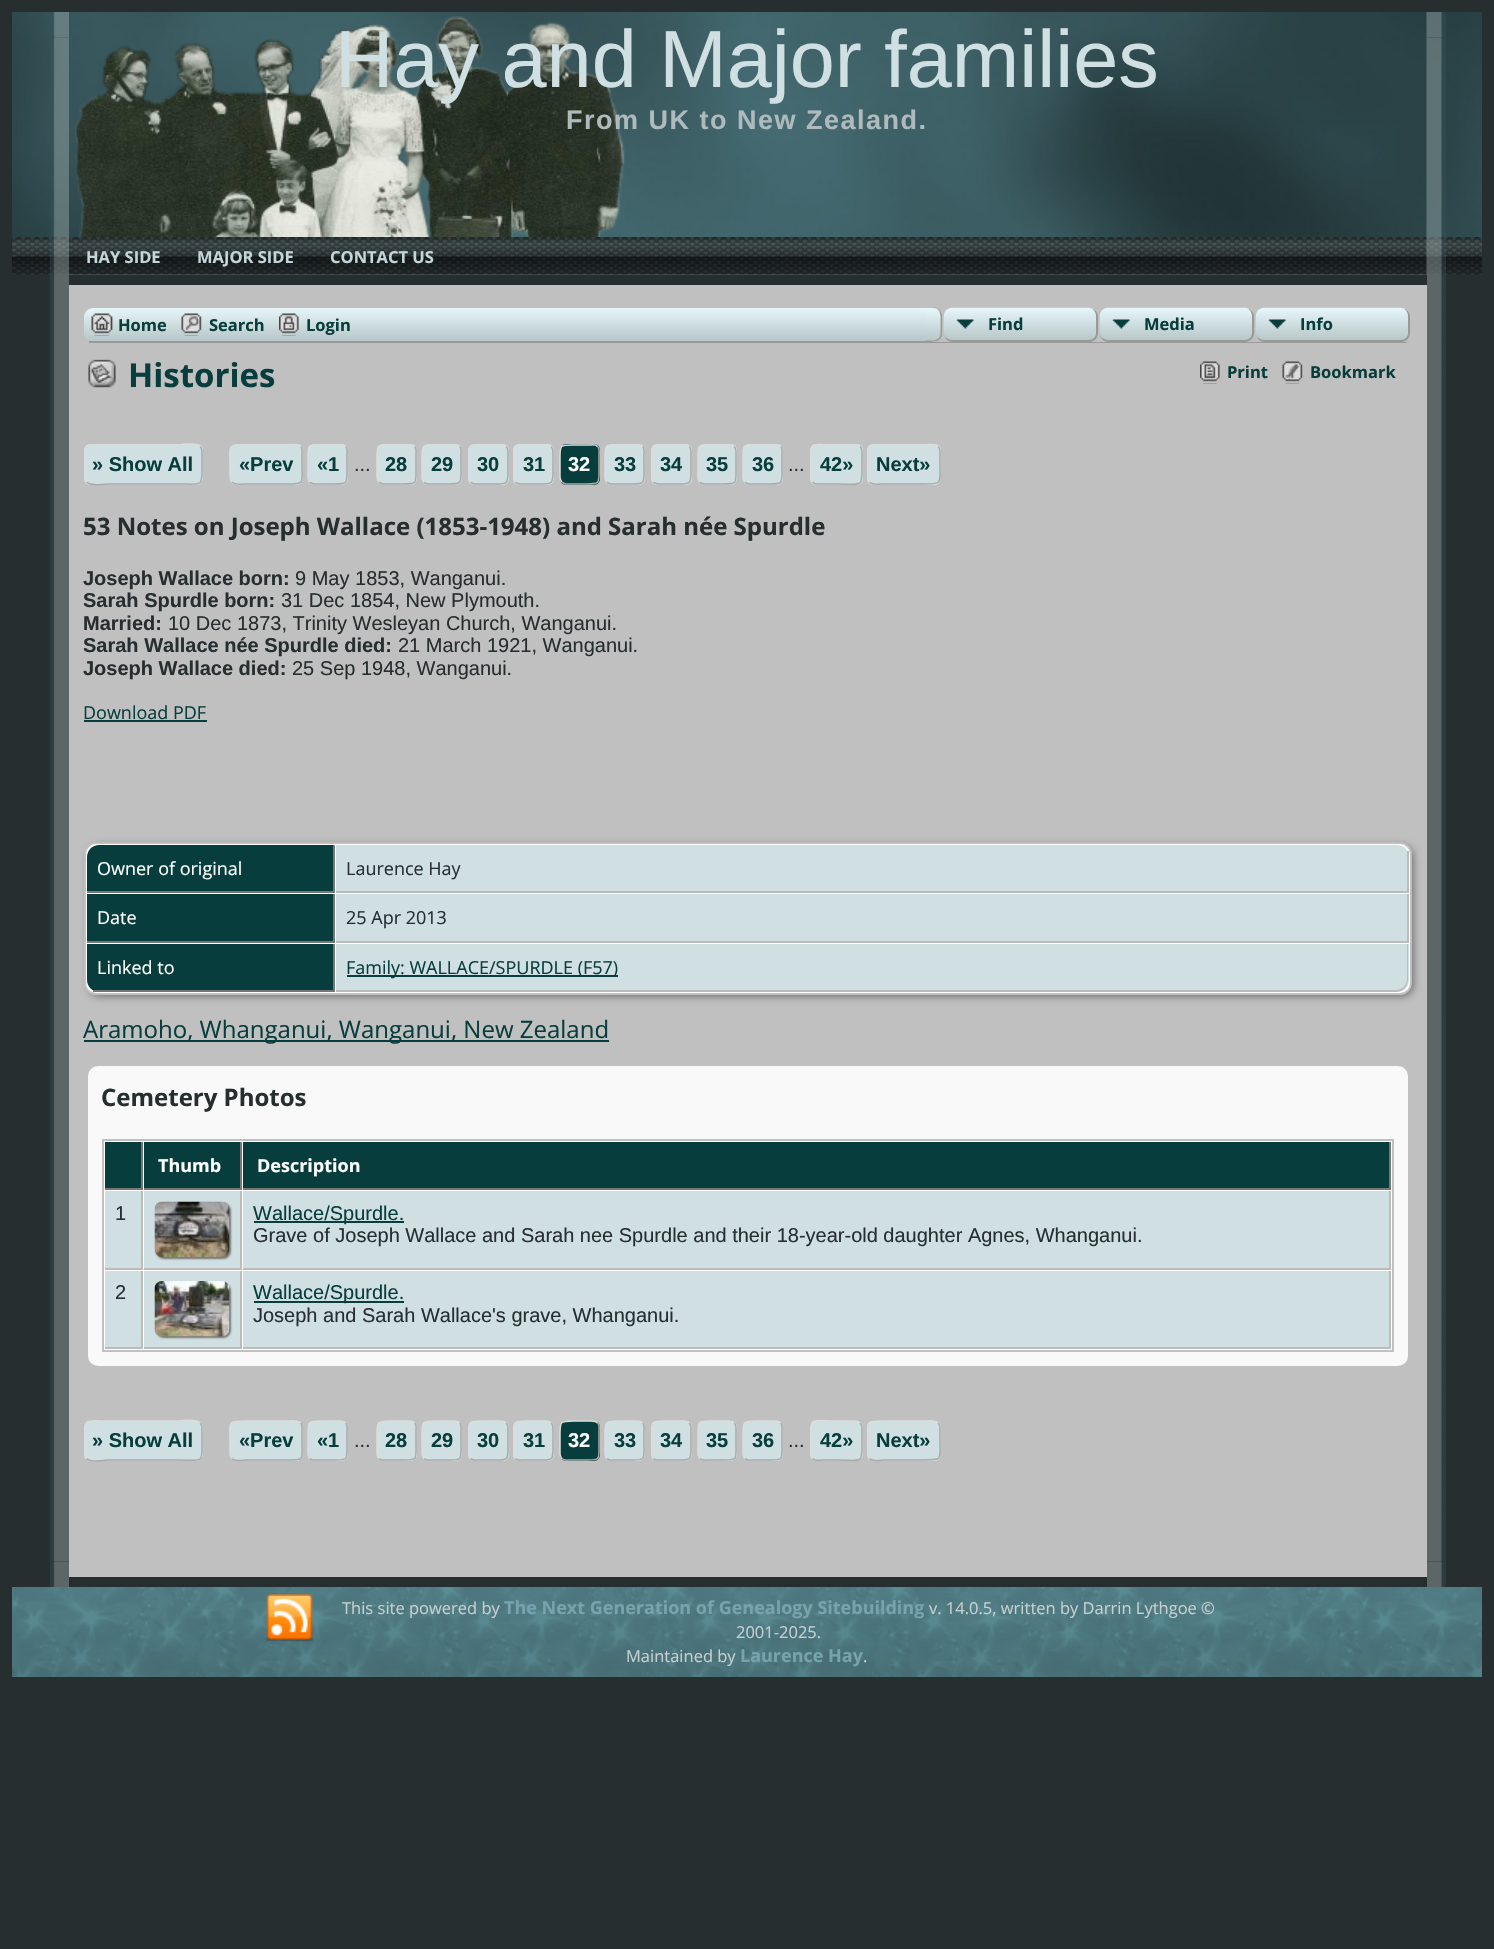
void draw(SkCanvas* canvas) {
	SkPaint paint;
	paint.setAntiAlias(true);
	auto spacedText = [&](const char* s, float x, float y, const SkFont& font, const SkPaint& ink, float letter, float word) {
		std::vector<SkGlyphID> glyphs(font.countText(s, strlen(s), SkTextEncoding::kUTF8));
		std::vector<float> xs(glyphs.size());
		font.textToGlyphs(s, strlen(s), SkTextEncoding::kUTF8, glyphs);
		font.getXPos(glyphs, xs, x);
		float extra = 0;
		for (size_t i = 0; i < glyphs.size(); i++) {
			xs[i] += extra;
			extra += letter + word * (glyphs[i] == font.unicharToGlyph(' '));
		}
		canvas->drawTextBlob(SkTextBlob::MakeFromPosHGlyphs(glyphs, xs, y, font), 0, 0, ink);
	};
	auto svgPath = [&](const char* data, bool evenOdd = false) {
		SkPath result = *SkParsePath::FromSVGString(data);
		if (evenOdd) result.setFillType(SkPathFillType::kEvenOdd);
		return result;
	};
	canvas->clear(0xff272e30);
	canvas->drawImageRect(SkImages::DeferredFromEncodedData(SkData::MakeFromFileName("img1.png")), SkRect::MakeXYWH(12, 12, 1470, 225), SkSamplingOptions());
	canvas->drawImageRect(SkImages::DeferredFromEncodedData(SkData::MakeFromFileName("img2.png")), SkRect::MakeXYWH(53, 12, 16, 26), SkSamplingOptions());
	canvas->drawImageRect(SkImages::DeferredFromEncodedData(SkData::MakeFromFileName("img3.png")), SkRect::MakeXYWH(1426, 12, 20, 26), SkSamplingOptions());
	canvas->drawImageRect(SkImages::DeferredFromEncodedData(SkData::MakeFromFileName("img20.png")), SkRect::MakeXYWH(50, 1561, 19, 26), SkSamplingOptions());
	canvas->drawImageRect(SkImages::DeferredFromEncodedData(SkData::MakeFromFileName("img22.png")), SkRect::MakeXYWH(12, 237, 1470, 38), SkSamplingOptions());
	canvas->drawImageRect(SkImages::DeferredFromEncodedData(SkData::MakeFromFileName("img4.png")), SkRect::MakeXYWH(49, 37, 26, 1525), SkSamplingOptions());
	canvas->drawImageRect(SkImages::DeferredFromEncodedData(SkData::MakeFromFileName("img21.png")), SkRect::MakeXYWH(1427, 1561, 19, 26), SkSamplingOptions());
	canvas->drawImageRect(SkImages::DeferredFromEncodedData(SkData::MakeFromFileName("img19.png")), SkRect::MakeXYWH(1420, 37, 26, 1525), SkSamplingOptions());
	canvas->drawImageRect(SkImages::DeferredFromEncodedData(SkData::MakeFromFileName("img5.png")), SkRect::MakeXYWH(69, 12, 1358, 225), SkSamplingOptions());
	canvas->drawImageRect(SkImages::DeferredFromEncodedData(SkData::MakeFromFileName("img6.png")), SkRect::MakeXYWH(74, 16, 551, 221), SkSamplingOptions());
	SkFont f1(fontMgr->matchFamilyStyle("Liberation Sans", SkFontStyle::Normal()), 81);
	f1.setSubpixel(true);
	paint.setColor(0xffcfdfe2);
	canvas->drawString("Hay and Major families", 335, 87, f1, paint);
	SkFont f2(fontMgr->matchFamilyStyle("Liberation Sans", SkFontStyle::Bold()), 27);
	f2.setSubpixel(true);
	paint.setColor(0xffaebabc);
	spacedText("From UK to New Zealand.", 566, 129, f2, paint, 1.5, 0);
	paint.setColor(0x66aab9b9);
	canvas->drawRect(SkRect::MakeXYWH(75, 274, 1346, 1), paint);
	canvas->drawImageRect(SkImages::DeferredFromEncodedData(SkData::MakeFromFileName("img7.png")), SkRect::MakeXYWH(69, 237, 1358, 38), SkSamplingOptions());
	SkFont f3(fontMgr->matchFamilyStyle("Open Sans", SkFontStyle::Bold()), 16.5);
	f3.setSubpixel(true);
	paint.setColor(0xffc2d6db);
	canvas->drawString("HAY SIDE", 86, 263, f3, paint);
	canvas->drawString("MAJOR SIDE", 197, 263, f3, paint);
	canvas->drawString("CONTACT US", 330, 263, f3, paint);
	paint.setColor(0xffc0c0c0);
	canvas->drawRect(SkRect::MakeXYWH(69, 285, 1358, 1292), paint);
	paint.setColor(0xff272e30);
	canvas->drawRect(SkRect::MakeXYWH(69, 275, 1358, 10), paint);
	paint.setColor(0xffcfdfe2);
	canvas->drawRoundRect(SkRect::MakeXYWH(84, 308, 1328, 34), 9, 9, paint);
	canvas->save();
	canvas->clipPath(svgPath("M93 308H1403C1408 308 1412 312 1412 317V333C1412 338 1408 342 1403 342H93C88 342 84 338 84 333V317C84 312 88 308 93 308Z"), true);
	{
		const SkColor colors[] = {0xffe7f7fa, 0xffb7c7c8};
		const float stops[] = {0, 1};
		const SkPoint ends[] = {{748, 307}, {748, 341}};
		paint.setShader(SkGradientShader::MakeLinear(ends, colors, stops, 2, SkTileMode::kClamp));
		paint.setAlpha(255);
	}
	canvas->drawPath(svgPath("M93 308H1403C1408 308 1412 312 1412 317V341H84V317C84 312 88 308 93 308Z"), paint);
	canvas->restore();
	paint.setShader(nullptr);
	paint.setColor(0xff999999);
	canvas->drawRect(SkRect::MakeXYWH(89, 341, 1318, 2), paint);
	canvas->drawImageRect(SkImages::DeferredFromEncodedData(SkData::MakeFromFileName("img8.png")), SkRect::MakeXYWH(91, 313, 22, 23), SkSamplingOptions());
	paint.setColor(0xff073d3c);
	canvas->drawString("Home", 118, 331, f3, paint);
	canvas->drawImageRect(SkImages::DeferredFromEncodedData(SkData::MakeFromFileName("img9.png")), SkRect::MakeXYWH(181, 313, 21, 23), SkSamplingOptions());
	canvas->drawString("Search", 209, 331, f3, paint);
	canvas->drawImageRect(SkImages::DeferredFromEncodedData(SkData::MakeFromFileName("img10.png")), SkRect::MakeXYWH(279, 313, 20, 23), SkSamplingOptions());
	canvas->drawString("Login", 306, 331, f3, paint);
	paint.setColor(0xffc0c0c0);
	canvas->drawRect(SkRect::MakeXYWH(933, 308, 479, 34), paint);
	canvas->save();
	canvas->clipPath(svgPath("M926 308H933C938 308 942 312 942 317V333C942 338 938 342 933 342H926Z"), true);
	{
		const SkColor colors[] = {0xffe7f7fa, 0xffb7c7c8};
		const float stops[] = {0, 1};
		const SkPoint ends[] = {{933, 308}, {933, 341}};
		paint.setShader(SkGradientShader::MakeLinear(ends, colors, stops, 2, SkTileMode::kClamp));
		paint.setAlpha(255);
	}
	canvas->drawRect(SkRect::MakeXYWH(926, 308, 16, 33), paint);
	{
		const SkColor colors[] = {0xffe7f7fa, 0xffb7c7c8};
		const float stops[] = {0, 1};
		const SkPoint ends[] = {{933, 341}, {933, 374}};
		paint.setShader(SkGradientShader::MakeLinear(ends, colors, stops, 2, SkTileMode::kClamp));
		paint.setAlpha(255);
	}
	canvas->drawRect(SkRect::MakeXYWH(926, 341, 16, 1), paint);
	canvas->restore();
	paint.setShader(nullptr);
	paint.setColor(0xff999999);
	canvas->drawPath(svgPath("M925.5 307.5C932 307.5 940 306.5 942 314.5V335C940 343 932 342 925.5 342ZM925.5 307.5H934.5C942 309.5 940.5 319 940.5 325V334.5C939 342 931 340.5 925.5 340.5Z", true), paint);
	canvas->drawImageRect(SkImages::DeferredFromEncodedData(SkData::MakeFromFileName("img11.png")), SkRect::MakeXYWH(943, 307, 154, 34), SkSamplingOptions());
	canvas->drawPath(svgPath("M952 308H1089C1094 308 1098 312 1098 316V333C1098 338 1094 342 1089 342H952C948 342 944 338 944 333V316C944 312 948 308 952 308ZM952 308H1089C1093 308 1096 312 1096 316V333C1096 337 1093 340 1089 340H952C948 340 944 337 944 333V316C944 312 948 308 952 308Z", true), paint);
	paint.setColor(0xff073d3c);
	canvas->drawString("Find", 988, 330, f3, paint);
	canvas->drawImageRect(SkImages::DeferredFromEncodedData(SkData::MakeFromFileName("img12.png")), SkRect::MakeXYWH(1099, 307, 154, 34), SkSamplingOptions());
	paint.setColor(0xff999999);
	canvas->drawPath(svgPath("M1108 308H1245C1250 308 1254 312 1254 316V333C1254 338 1250 342 1245 342H1108C1104 342 1100 338 1100 333V316C1100 312 1104 308 1108 308ZM1108 308H1245C1249 308 1252 312 1252 316V333C1252 337 1249 340 1245 340H1108C1104 340 1100 337 1100 333V316C1100 312 1104 308 1108 308Z", true), paint);
	paint.setColor(0xff073d3c);
	canvas->drawString("Media", 1144, 330, f3, paint);
	canvas->drawImageRect(SkImages::DeferredFromEncodedData(SkData::MakeFromFileName("img13.png")), SkRect::MakeXYWH(1255, 307, 154, 34), SkSamplingOptions());
	paint.setColor(0xff999999);
	canvas->drawPath(svgPath("M1264 308H1401C1406 308 1410 312 1410 316V333C1410 338 1406 342 1401 342H1264C1260 342 1256 338 1256 333V316C1256 312 1260 308 1264 308ZM1264 308H1401C1405 308 1408 312 1408 316V333C1408 337 1405 340 1401 340H1264C1260 340 1256 337 1256 333V316C1256 312 1260 308 1264 308Z", true), paint);
	paint.setColor(0xff073d3c);
	canvas->drawString("Info", 1300, 330, f3, paint);
	canvas->drawImageRect(SkImages::DeferredFromEncodedData(SkData::MakeFromFileName("img14.png")), SkRect::MakeXYWH(88, 359, 28, 29), SkSamplingOptions());
	SkFont f4(fontMgr->matchFamilyStyle("Open Sans", SkFontStyle::Bold()), 33);
	f4.setSubpixel(true);
	canvas->drawString("Histories", 128, 387, f4, paint);
	canvas->drawImageRect(SkImages::DeferredFromEncodedData(SkData::MakeFromFileName("img15.png")), SkRect::MakeXYWH(1200, 361, 20, 23), SkSamplingOptions());
	canvas->drawString("Print", 1227, 378, f3, paint);
	canvas->drawImageRect(SkImages::DeferredFromEncodedData(SkData::MakeFromFileName("img16.png")), SkRect::MakeXYWH(1282, 361, 21, 23), SkSamplingOptions());
	canvas->drawString("Bookmark", 1310, 378, f3, paint);
	paint.setColor(0xffcfdfe2);
	canvas->drawRoundRect(SkRect::MakeXYWH(84, 444, 119, 41), 6, 6, paint);
	paint.setStroke(true);
	paint.setStrokeWidth(1.5);
	paint.setColor(0xffaaaaaa);
	canvas->drawPath(svgPath("M200 446.5C202.5 448.5 202 452 202 455V464C202 487.5 204 484 179 484H108C107.5 484 90.5 486.5 86.5 482"), paint);
	paint.setColor(0xffdddddd);
	canvas->drawPath(svgPath("M86.5 482C84 480 85 476.5 85 474V464C85 441 82.5 445 108 445H179C179 445 196 442 200 446.5"), paint);
	SkFont f5(fontMgr->matchFamilyStyle("Liberation Sans", SkFontStyle::Bold()), 20);
	f5.setSubpixel(true);
	paint.setStroke(false);
	paint.setColor(0xff073d3c);
	canvas->drawString("» Show All", 92, 471, f5, paint);
	paint.setColor(0xffcfdfe2);
	canvas->drawRoundRect(SkRect::MakeXYWH(230, 444, 73, 41), 6, 6, paint);
	paint.setStroke(true);
	paint.setColor(0xffaaaaaa);
	canvas->drawPath(svgPath("M300.5 446.5C303 448.5 302 452 302 455V464C302 483.5 305.5 484 287 484H246C243.5 484 235 485.5 232 482"), paint);
	paint.setColor(0xffdddddd);
	canvas->drawPath(svgPath("M232 482C229.5 480 230 476.5 230 474V464C230 445 227 445 246 445H287C289 445 297.5 443 300.5 446.5"), paint);
	paint.setStroke(false);
	paint.setColor(0xff073d3c);
	canvas->drawString("«Prev", 239, 471, f5, paint);
	paint.setColor(0xffcfdfe2);
	canvas->drawRoundRect(SkRect::MakeXYWH(308, 444, 40, 41), 6, 6, paint);
	paint.setStroke(true);
	paint.setColor(0xffaaaaaa);
	canvas->drawPath(svgPath("M345.5 446.5C348 448.5 347 452 347 455V464C347 486 349.5 484 328 484H318C315.5 484 312 484.5 310 482"), paint);
	paint.setColor(0xffdddddd);
	canvas->drawPath(svgPath("M310 482C307.5 480 308 476.5 308 474V464C308 442.5 306 445 328 445H337C340 445 343.5 444 345.5 446.5"), paint);
	paint.setStroke(false);
	paint.setColor(0xff073d3c);
	canvas->drawString("«1", 317, 471, f5, paint);
	SkFont f6(fontMgr->matchFamilyStyle("Liberation Sans", SkFontStyle::Normal()), 20);
	f6.setSubpixel(true);
	paint.setColor(0xff272e30);
	canvas->drawString("...", 354, 471, f6, paint);
	paint.setColor(0xffcfdfe2);
	canvas->drawRoundRect(SkRect::MakeXYWH(377, 444, 40, 41), 6, 6, paint);
	paint.setStroke(true);
	paint.setColor(0xffaaaaaa);
	canvas->drawPath(svgPath("M414.5 446.5C417 448.5 416 452 416 455V464C416 486 418.5 484 397 484H387C384.5 484 381 484.5 379 482"), paint);
	paint.setColor(0xffdddddd);
	canvas->drawPath(svgPath("M379 482C376.5 480 377 476.5 377 474V464C377 442.5 375 445 397 445H406C409 445 412.5 444 414.5 446.5"), paint);
	paint.setStroke(false);
	paint.setColor(0xff073d3c);
	canvas->drawString("28", 385, 471, f5, paint);
	paint.setColor(0xffcfdfe2);
	canvas->drawRoundRect(SkRect::MakeXYWH(422, 444, 40, 41), 6, 6, paint);
	paint.setStroke(true);
	paint.setColor(0xffaaaaaa);
	canvas->drawPath(svgPath("M459.5 446.5C462 448.5 461 452 461 455V464C461 486 463.5 484 442 484H432C429.5 484 426 484.5 424 482"), paint);
	paint.setColor(0xffdddddd);
	canvas->drawPath(svgPath("M424 482C421.5 480 422 476.5 422 474V464C422 442.5 420 445 442 445H451C454 445 457.5 444 459.5 446.5"), paint);
	paint.setStroke(false);
	paint.setColor(0xff073d3c);
	canvas->drawString("29", 431, 471, f5, paint);
	paint.setColor(0xffcfdfe2);
	canvas->drawRoundRect(SkRect::MakeXYWH(468, 444, 41, 41), 6, 6, paint);
	paint.setStroke(true);
	paint.setColor(0xffaaaaaa);
	canvas->drawPath(svgPath("M506 446.5C508.5 448.5 508 452 508 455V464C508 486 510 484 488 484H479C476 484 472.5 484.5 470.5 482"), paint);
	paint.setColor(0xffdddddd);
	canvas->drawPath(svgPath("M470.5 482C468 480 469 476.5 469 474V464C469 442.5 466.5 445 488 445H498C500.5 445 504 444 506 446.5"), paint);
	paint.setStroke(false);
	paint.setColor(0xff073d3c);
	canvas->drawString("30", 477, 471, f5, paint);
	paint.setColor(0xffcfdfe2);
	canvas->drawRoundRect(SkRect::MakeXYWH(513, 444, 41, 41), 6, 6, paint);
	paint.setStroke(true);
	paint.setColor(0xffaaaaaa);
	canvas->drawPath(svgPath("M551 446.5C553.5 448.5 553 452 553 455V464C553 486 555 484 533 484H524C521 484 517.5 484.5 515.5 482"), paint);
	paint.setColor(0xffdddddd);
	canvas->drawPath(svgPath("M515.5 482C513 480 514 476.5 514 474V464C514 442.5 511.5 445 533 445H543C545.5 445 549 444 551 446.5"), paint);
	paint.setStroke(false);
	paint.setColor(0xff073d3c);
	canvas->drawString("31", 523, 471, f5, paint);
	canvas->drawRoundRect(SkRect::MakeXYWH(560, 444, 40, 41), 6, 6, paint);
	paint.setStroke(true);
	paint.setColor(0xffaaaaaa);
	canvas->drawPath(svgPath("M597.5 446.5C600 448.5 599 452 599 455V464C599 486 601.5 484 580 484H570C567.5 484 564 484.5 562 482"), paint);
	paint.setColor(0xffdddddd);
	canvas->drawPath(svgPath("M562 482C559.5 480 560 476.5 560 474V464C560 442.5 558 445 580 445H589C592 445 595.5 444 597.5 446.5"), paint);
	paint.setStroke(false);
	paint.setColor(0xffffffff);
	canvas->drawString("32", 568, 471, f5, paint);
	paint.setColor(0xffcfdfe2);
	canvas->drawRoundRect(SkRect::MakeXYWH(605, 444, 40, 41), 6, 6, paint);
	paint.setStroke(true);
	paint.setColor(0xffaaaaaa);
	canvas->drawPath(svgPath("M642.5 446.5C645 448.5 644 452 644 455V464C644 486 646.5 484 625 484H615C612.5 484 609 484.5 607 482"), paint);
	paint.setColor(0xffdddddd);
	canvas->drawPath(svgPath("M607 482C604.5 480 605 476.5 605 474V464C605 442.5 603 445 625 445H634C637 445 640.5 444 642.5 446.5"), paint);
	paint.setStroke(false);
	paint.setColor(0xff073d3c);
	canvas->drawString("33", 614, 471, f5, paint);
	paint.setColor(0xffcfdfe2);
	canvas->drawRoundRect(SkRect::MakeXYWH(651, 444, 41, 41), 6, 6, paint);
	paint.setStroke(true);
	paint.setColor(0xffaaaaaa);
	canvas->drawPath(svgPath("M689 446.5C691.5 448.5 691 452 691 455V464C691 486 693 484 671 484H662C659 484 655.5 484.5 653.5 482"), paint);
	paint.setColor(0xffdddddd);
	canvas->drawPath(svgPath("M653.5 482C651 480 652 476.5 652 474V464C652 442.5 649.5 445 671 445H681C683.5 445 687 444 689 446.5"), paint);
	paint.setStroke(false);
	paint.setColor(0xff073d3c);
	canvas->drawString("34", 660, 471, f5, paint);
	paint.setColor(0xffcfdfe2);
	canvas->drawRoundRect(SkRect::MakeXYWH(698, 444, 39, 41), 6, 6, paint);
	paint.setStroke(true);
	paint.setColor(0xffaaaaaa);
	canvas->drawPath(svgPath("M734 446.5C736.5 448.5 736 452 736 455V464C736 486 738.5 484 717 484H708C705.5 484 702 484.5 700 482"), paint);
	paint.setColor(0xffdddddd);
	canvas->drawPath(svgPath("M700 482C697.5 480 698 476.5 698 474V464C698 442.5 695.5 445 717 445H726C728.5 445 732 444 734 446.5"), paint);
	paint.setStroke(false);
	paint.setColor(0xff073d3c);
	canvas->drawString("35", 706, 471, f5, paint);
	paint.setColor(0xffcfdfe2);
	canvas->drawRoundRect(SkRect::MakeXYWH(743, 444, 40, 41), 6, 6, paint);
	paint.setStroke(true);
	paint.setColor(0xffaaaaaa);
	canvas->drawPath(svgPath("M780.5 446.5C783 448.5 782 452 782 455V464C782 486 784.5 484 763 484H753C750.5 484 747 484.5 745 482"), paint);
	paint.setColor(0xffdddddd);
	canvas->drawPath(svgPath("M745 482C742.5 480 743 476.5 743 474V464C743 442.5 741 445 763 445H772C775 445 778.5 444 780.5 446.5"), paint);
	paint.setStroke(false);
	paint.setColor(0xff073d3c);
	canvas->drawString("36", 752, 471, f5, paint);
	paint.setColor(0xff272e30);
	canvas->drawString("...", 788, 471, f6, paint);
	paint.setColor(0xffcfdfe2);
	canvas->drawRoundRect(SkRect::MakeXYWH(810, 444, 53, 41), 6, 6, paint);
	paint.setStroke(true);
	paint.setColor(0xffaaaaaa);
	canvas->drawPath(svgPath("M860 446.5C862.5 448.5 862 452 862 455V464C862 489 863.5 484 836 484H823C820 484 815 485 812.5 482"), paint);
	paint.setColor(0xffdddddd);
	canvas->drawPath(svgPath("M812.5 482C810 480 811 476.5 811 474V464C811 439.5 809 445 836 445H850C852.5 445 857.5 443.5 860 446.5"), paint);
	paint.setStroke(false);
	paint.setColor(0xff073d3c);
	canvas->drawString("42»", 820, 471, f5, paint);
	paint.setColor(0xffcfdfe2);
	canvas->drawRoundRect(SkRect::MakeXYWH(867, 444, 74, 41), 6, 6, paint);
	paint.setStroke(true);
	paint.setColor(0xffaaaaaa);
	canvas->drawPath(svgPath("M938 446.5C940.5 448.5 940 452 940 455V464C940 483.5 943 484 924 484H883C881 484 872.5 485.5 869.5 482"), paint);
	paint.setColor(0xffdddddd);
	canvas->drawPath(svgPath("M869.5 482C867 480 868 476.5 868 474V464C868 445 864.5 445 883 445H924C926.5 445 935 443 938 446.5"), paint);
	paint.setStroke(false);
	paint.setColor(0xff073d3c);
	canvas->drawString("Next»", 876, 471, f5, paint);
	SkFont f7(fontMgr->matchFamilyStyle("Open Sans", SkFontStyle::Bold()), 24);
	f7.setSubpixel(true);
	paint.setColor(0xff272e30);
	canvas->drawString("53 Notes on Joseph Wallace (1853-1948) and Sarah née Spurdle", 83, 535, f7, paint);
	canvas->drawString("Joseph Wallace born:", 83, 585, f5, paint);
	canvas->drawString("9 May 1853, Wanganui.", 295, 585, f6, paint);
	canvas->drawString("Sarah Spurdle born:", 83, 607, f5, paint);
	canvas->drawString("31 Dec 1854, New Plymouth.", 281, 607, f6, paint);
	canvas->drawString("Married:", 83, 630, f5, paint);
	canvas->drawString("10 Dec 1873, Trinity Wesleyan Church, Wanganui.", 168, 630, f6, paint);
	canvas->drawString("Sarah Wallace née Spurdle died:", 83, 652, f5, paint);
	canvas->drawString("21 March 1921, Wanganui.", 398, 652, f6, paint);
	canvas->drawString("Joseph Wallace died:", 83, 675, f5, paint);
	canvas->drawString("25 Sep 1948, Wanganui.", 292, 675, f6, paint);
	SkFont f8(fontMgr->matchFamilyStyle("Open Sans", SkFontStyle::Normal()), 18);
	f8.setSubpixel(true);
	paint.setColor(0xff073d3c);
	canvas->drawString("Download PDF", 83, 719, f8, paint);
	canvas->drawRect(SkRect::MakeXYWH(84, 720, 123, 2), paint);
	paint.setColor(0xff666666);
	paint.setMaskFilter(SkMaskFilter::MakeBlur(kNormal_SkBlurStyle, 4));
	canvas->drawRoundRect(SkRect::MakeXYWH(89, 846, 1324, 150), 11, 11, paint);
	paint.setMaskFilter(nullptr);
	paint.setColor(0xffffffff);
	canvas->drawRoundRect(SkRect::MakeXYWH(85, 843, 1326, 151), 11, 11, paint);
	paint.setStroke(true);
	paint.setStrokeWidth(2);
	paint.setColor(0xffc0c0c0);
	canvas->drawRoundRect(SkRect::MakeXYWH(85, 843, 1326, 151), 11, 11, paint);
	paint.setStroke(false);
	paint.setColor(0xff073d3c);
	canvas->drawPath(svgPath("M99 845H335V893H87V857C87 850.5 92.5 845 99 845Z"), paint);
	paint.setColor(0xff777777);
	canvas->drawRect(SkRect::MakeXYWH(333, 845, 2, 48), paint);
	canvas->drawRect(SkRect::MakeXYWH(87, 891, 248, 2), paint);
	paint.setColor(0xffffffff);
	canvas->drawString("Owner of original", 97, 875, f8, paint);
	paint.setColor(0xffcfdfe2);
	canvas->drawPath(svgPath("M336 845H1397C1403.5 845 1409 850.5 1409 857V893H336Z"), paint);
	paint.setColor(0xffbbbbbb);
	canvas->drawRect(SkRect::MakeXYWH(1407, 851, 2, 42), paint);
	canvas->drawRect(SkRect::MakeXYWH(336, 891, 1073, 2), paint);
	paint.setColor(0xff272e30);
	canvas->drawString("Laurence Hay", 346, 875, f8, paint);
	paint.setColor(0xff073d3c);
	canvas->drawRect(SkRect::MakeXYWH(87, 894, 246, 47), paint);
	paint.setColor(0xff777777);
	canvas->drawRect(SkRect::MakeXYWH(333, 894, 2, 48), paint);
	canvas->drawRect(SkRect::MakeXYWH(87, 941, 248, 2), paint);
	paint.setColor(0xffffffff);
	canvas->drawString("Date", 97, 924, f8, paint);
	paint.setColor(0xffcfdfe2);
	canvas->drawRect(SkRect::MakeXYWH(336, 894, 1071, 47), paint);
	paint.setColor(0xffbbbbbb);
	canvas->drawRect(SkRect::MakeXYWH(1407, 894, 2, 48), paint);
	canvas->drawRect(SkRect::MakeXYWH(336, 941, 1073, 2), paint);
	paint.setColor(0xff272e30);
	canvas->drawString("25 Apr 2013", 346, 924, f8, paint);
	paint.setColor(0xff073d3c);
	canvas->drawPath(svgPath("M87 944H335V992H99C92.5 992 87 986.5 87 980Z"), paint);
	paint.setColor(0xff777777);
	canvas->drawRect(SkRect::MakeXYWH(333, 944, 2, 48), paint);
	canvas->drawRect(SkRect::MakeXYWH(93, 990, 242, 2), paint);
	paint.setColor(0xffffffff);
	canvas->drawString("Linked to", 97, 974, f8, paint);
	paint.setColor(0xffcfdfe2);
	canvas->drawPath(svgPath("M336 944H1409V980C1409 986.5 1403.5 992 1397 992H336Z"), paint);
	paint.setColor(0xffbbbbbb);
	canvas->drawPath(svgPath("M336 944H1408V980C1408 986 1403 992 1396 992H336ZM336 944H1407V980C1407 985 1402 990 1396 990H336Z", true), paint);
	paint.setColor(0xff073d3c);
	canvas->drawRect(SkRect::MakeXYWH(347, 975, 271, 2), paint);
	canvas->drawString("Family: WALLACE/SPURDLE (F57)", 346, 974, f8, paint);
	canvas->drawRect(SkRect::MakeXYWH(84, 1040, 525, 2), paint);
	SkFont f9(fontMgr->matchFamilyStyle("Open Sans", SkFontStyle::Normal()), 24);
	f9.setSubpixel(true);
	canvas->drawString("Aramoho, Whanganui, Wanganui, New Zealand", 83, 1038, f9, paint);
	paint.setColor(0xfff9f9f9);
	canvas->drawRoundRect(SkRect::MakeXYWH(87, 1065, 1322, 302), 11, 11, paint);
	paint.setStroke(true);
	paint.setColor(0xffc0c0c0);
	canvas->drawRoundRect(SkRect::MakeXYWH(87, 1065, 1322, 302), 11, 11, paint);
	paint.setStroke(false);
	paint.setColor(0xff272e30);
	canvas->drawString("Cemetery Photos", 101, 1106, f7, paint);
	paint.setColor(0xffffffff);
	canvas->drawRect(SkRect::MakeXYWH(103, 1140, 1290, 211), paint);
	paint.setStroke(true);
	paint.setColor(0xffc0c0c0);
	canvas->drawRect(SkRect::MakeXYWH(103, 1140, 1290, 211), paint);
	paint.setStroke(false);
	paint.setColor(0xff073d3c);
	canvas->drawRect(SkRect::MakeXYWH(105, 1142, 36, 46), paint);
	paint.setColor(0xff777777);
	canvas->drawRect(SkRect::MakeXYWH(141, 1142, 2, 48), paint);
	canvas->drawRect(SkRect::MakeXYWH(105, 1188, 38, 2), paint);
	paint.setColor(0xff073d3c);
	canvas->drawRect(SkRect::MakeXYWH(144, 1142, 96, 46), paint);
	paint.setColor(0xff777777);
	canvas->drawRect(SkRect::MakeXYWH(240, 1142, 2, 48), paint);
	canvas->drawRect(SkRect::MakeXYWH(144, 1188, 98, 2), paint);
	SkFont f10(fontMgr->matchFamilyStyle("Open Sans", SkFontStyle::Bold()), 18);
	f10.setSubpixel(true);
	paint.setColor(0xffffffff);
	canvas->drawString("Thumb", 158, 1172, f10, paint);
	paint.setColor(0xff073d3c);
	canvas->drawRect(SkRect::MakeXYWH(243, 1142, 1146, 46), paint);
	paint.setColor(0xff777777);
	canvas->drawRect(SkRect::MakeXYWH(1389, 1142, 2, 48), paint);
	canvas->drawRect(SkRect::MakeXYWH(243, 1188, 1148, 2), paint);
	paint.setColor(0xffffffff);
	canvas->drawString("Description", 257, 1172, f10, paint);
	paint.setColor(0xffcfdfe2);
	canvas->drawRect(SkRect::MakeXYWH(105, 1191, 36, 77), paint);
	paint.setColor(0xffbbbbbb);
	canvas->drawRect(SkRect::MakeXYWH(141, 1191, 2, 78), paint);
	canvas->drawRect(SkRect::MakeXYWH(105, 1268, 38, 2), paint);
	paint.setColor(0xff272e30);
	canvas->drawString("1", 115, 1220, f6, paint);
	paint.setColor(0xffcfdfe2);
	canvas->drawRect(SkRect::MakeXYWH(144, 1191, 96, 77), paint);
	paint.setColor(0xffbbbbbb);
	canvas->drawRect(SkRect::MakeXYWH(240, 1191, 2, 78), paint);
	canvas->drawRect(SkRect::MakeXYWH(144, 1268, 98, 2), paint);
	paint.setColor(0xff777777);
	paint.setMaskFilter(SkMaskFilter::MakeBlur(kNormal_SkBlurStyle, 1));
	canvas->drawRoundRect(SkRect::MakeXYWH(156, 1203, 75, 56), 8, 8, paint);
	paint.setMaskFilter(nullptr);
	canvas->drawImageRect(SkImages::DeferredFromEncodedData(SkData::MakeFromFileName("img17.png")), SkRect::MakeXYWH(154, 1201, 76, 56), SkSamplingOptions());
	paint.setColor(0xffcfdfe2);
	canvas->drawRect(SkRect::MakeXYWH(243, 1191, 1146, 77), paint);
	paint.setColor(0xffbbbbbb);
	canvas->drawRect(SkRect::MakeXYWH(1389, 1191, 2, 78), paint);
	canvas->drawRect(SkRect::MakeXYWH(243, 1268, 1148, 2), paint);
	paint.setColor(0xff073d3c);
	canvas->drawRect(SkRect::MakeXYWH(254, 1221, 150, 2), paint);
	canvas->drawString("Wallace/Spurdle.", 253, 1220, f6, paint);
	paint.setColor(0xff272e30);
	canvas->drawString("Grave of Joseph Wallace and Sarah nee Spurdle and their 18-year-old daughter Agnes, Whanganui.", 253, 1242, f6, paint);
	paint.setColor(0xffcfdfe2);
	canvas->drawRect(SkRect::MakeXYWH(105, 1271, 36, 76), paint);
	paint.setColor(0xffbbbbbb);
	canvas->drawRect(SkRect::MakeXYWH(141, 1271, 2, 78), paint);
	canvas->drawRect(SkRect::MakeXYWH(105, 1347, 38, 2), paint);
	paint.setColor(0xff272e30);
	canvas->drawString("2", 115, 1299, f6, paint);
	paint.setColor(0xffcfdfe2);
	canvas->drawRect(SkRect::MakeXYWH(144, 1271, 96, 76), paint);
	paint.setColor(0xffbbbbbb);
	canvas->drawRect(SkRect::MakeXYWH(240, 1271, 2, 78), paint);
	canvas->drawRect(SkRect::MakeXYWH(144, 1347, 98, 2), paint);
	paint.setColor(0xff777777);
	paint.setMaskFilter(SkMaskFilter::MakeBlur(kNormal_SkBlurStyle, 1));
	canvas->drawRoundRect(SkRect::MakeXYWH(156, 1283, 75, 55), 8, 8, paint);
	paint.setMaskFilter(nullptr);
	canvas->drawImageRect(SkImages::DeferredFromEncodedData(SkData::MakeFromFileName("img18.png")), SkRect::MakeXYWH(154, 1281, 76, 56), SkSamplingOptions());
	paint.setColor(0xffcfdfe2);
	canvas->drawRect(SkRect::MakeXYWH(243, 1271, 1146, 76), paint);
	paint.setColor(0xffbbbbbb);
	canvas->drawRect(SkRect::MakeXYWH(1389, 1271, 2, 78), paint);
	canvas->drawRect(SkRect::MakeXYWH(243, 1347, 1148, 2), paint);
	paint.setColor(0xff073d3c);
	canvas->drawRect(SkRect::MakeXYWH(254, 1301, 150, 2), paint);
	canvas->drawString("Wallace/Spurdle.", 253, 1299, f6, paint);
	paint.setColor(0xff272e30);
	canvas->drawString("Joseph and Sarah Wallace's grave, Whanganui.", 253, 1322, f6, paint);
	paint.setColor(0xffcfdfe2);
	canvas->drawRoundRect(SkRect::MakeXYWH(84, 1421, 119, 40), 6, 6, paint);
	paint.setStroke(true);
	paint.setStrokeWidth(1.5);
	paint.setColor(0xffaaaaaa);
	canvas->drawPath(svgPath("M200 1423C202.5 1425 202 1428.5 202 1431V1441C202 1464 204 1460 179 1460H108C107.5 1460 90.5 1463 86.5 1458.5"), paint);
	paint.setColor(0xffdddddd);
	canvas->drawPath(svgPath("M86.5 1458.5C84 1456.5 85 1453 85 1450V1441C85 1417.5 82.5 1421 108 1421H179C179 1421 196 1418.5 200 1423"), paint);
	paint.setStroke(false);
	paint.setColor(0xff073d3c);
	canvas->drawString("» Show All", 92, 1447, f5, paint);
	paint.setColor(0xffcfdfe2);
	canvas->drawRoundRect(SkRect::MakeXYWH(230, 1421, 73, 40), 6, 6, paint);
	paint.setStroke(true);
	paint.setColor(0xffaaaaaa);
	canvas->drawPath(svgPath("M300.5 1423C303 1425 302 1428.5 302 1431V1441C302 1460 305.5 1460 287 1460H246C243.5 1460 235 1462 232 1458.5"), paint);
	paint.setColor(0xffdddddd);
	canvas->drawPath(svgPath("M232 1458.5C229.5 1456.5 230 1453 230 1450V1441C230 1421.5 227 1421 246 1421H287C289 1421 297.5 1419.5 300.5 1423"), paint);
	paint.setStroke(false);
	paint.setColor(0xff073d3c);
	canvas->drawString("«Prev", 239, 1447, f5, paint);
	paint.setColor(0xffcfdfe2);
	canvas->drawRoundRect(SkRect::MakeXYWH(308, 1421, 40, 40), 6, 6, paint);
	paint.setStroke(true);
	paint.setColor(0xffaaaaaa);
	canvas->drawPath(svgPath("M345.5 1423C348 1425 347 1428.5 347 1431V1441C347 1462.5 349.5 1460 328 1460H318C315.5 1460 312 1461 310 1458.5"), paint);
	paint.setColor(0xffdddddd);
	canvas->drawPath(svgPath("M310 1458.5C307.5 1456.5 308 1453 308 1450V1441C308 1419 306 1421 328 1421H337C340 1421 343.5 1420.5 345.5 1423"), paint);
	paint.setStroke(false);
	paint.setColor(0xff073d3c);
	canvas->drawString("«1", 317, 1447, f5, paint);
	paint.setColor(0xff272e30);
	canvas->drawString("...", 354, 1447, f6, paint);
	paint.setColor(0xffcfdfe2);
	canvas->drawRoundRect(SkRect::MakeXYWH(377, 1421, 40, 40), 6, 6, paint);
	paint.setStroke(true);
	paint.setColor(0xffaaaaaa);
	canvas->drawPath(svgPath("M414.5 1423C417 1425 416 1428.5 416 1431V1441C416 1462.5 418.5 1460 397 1460H387C384.5 1460 381 1461 379 1458.5"), paint);
	paint.setColor(0xffdddddd);
	canvas->drawPath(svgPath("M379 1458.5C376.5 1456.5 377 1453 377 1450V1441C377 1419 375 1421 397 1421H406C409 1421 412.5 1420.5 414.5 1423"), paint);
	paint.setStroke(false);
	paint.setColor(0xff073d3c);
	canvas->drawString("28", 385, 1447, f5, paint);
	paint.setColor(0xffcfdfe2);
	canvas->drawRoundRect(SkRect::MakeXYWH(422, 1421, 40, 40), 6, 6, paint);
	paint.setStroke(true);
	paint.setColor(0xffaaaaaa);
	canvas->drawPath(svgPath("M459.5 1423C462 1425 461 1428.5 461 1431V1441C461 1462.5 463.5 1460 442 1460H432C429.5 1460 426 1461 424 1458.5"), paint);
	paint.setColor(0xffdddddd);
	canvas->drawPath(svgPath("M424 1458.5C421.5 1456.5 422 1453 422 1450V1441C422 1419 420 1421 442 1421H451C454 1421 457.5 1420.5 459.5 1423"), paint);
	paint.setStroke(false);
	paint.setColor(0xff073d3c);
	canvas->drawString("29", 431, 1447, f5, paint);
	paint.setColor(0xffcfdfe2);
	canvas->drawRoundRect(SkRect::MakeXYWH(468, 1421, 41, 40), 6, 6, paint);
	paint.setStroke(true);
	paint.setColor(0xffaaaaaa);
	canvas->drawPath(svgPath("M506 1423C508.5 1425 508 1428.5 508 1431V1441C508 1462.5 510 1460 488 1460H479C476 1460 472.5 1461 470.5 1458.5"), paint);
	paint.setColor(0xffdddddd);
	canvas->drawPath(svgPath("M470.5 1458.5C468 1456.5 469 1453 469 1450V1441C469 1419 466.5 1421 488 1421H498C500.5 1421 504 1420.5 506 1423"), paint);
	paint.setStroke(false);
	paint.setColor(0xff073d3c);
	canvas->drawString("30", 477, 1447, f5, paint);
	paint.setColor(0xffcfdfe2);
	canvas->drawRoundRect(SkRect::MakeXYWH(513, 1421, 41, 40), 6, 6, paint);
	paint.setStroke(true);
	paint.setColor(0xffaaaaaa);
	canvas->drawPath(svgPath("M551 1423C553.5 1425 553 1428.5 553 1431V1441C553 1462.5 555 1460 533 1460H524C521 1460 517.5 1461 515.5 1458.5"), paint);
	paint.setColor(0xffdddddd);
	canvas->drawPath(svgPath("M515.5 1458.5C513 1456.5 514 1453 514 1450V1441C514 1419 511.5 1421 533 1421H543C545.5 1421 549 1420.5 551 1423"), paint);
	paint.setStroke(false);
	paint.setColor(0xff073d3c);
	canvas->drawString("31", 523, 1447, f5, paint);
	canvas->drawRoundRect(SkRect::MakeXYWH(560, 1421, 40, 40), 6, 6, paint);
	paint.setStroke(true);
	paint.setColor(0xffaaaaaa);
	canvas->drawPath(svgPath("M597.5 1423C600 1425 599 1428.5 599 1431V1441C599 1462.5 601.5 1460 580 1460H570C567.5 1460 564 1461 562 1458.5"), paint);
	paint.setColor(0xffdddddd);
	canvas->drawPath(svgPath("M562 1458.5C559.5 1456.5 560 1453 560 1450V1441C560 1419 558 1421 580 1421H589C592 1421 595.5 1420.5 597.5 1423"), paint);
	paint.setStroke(false);
	paint.setColor(0xffffffff);
	canvas->drawString("32", 568, 1447, f5, paint);
	paint.setColor(0xffcfdfe2);
	canvas->drawRoundRect(SkRect::MakeXYWH(605, 1421, 40, 40), 6, 6, paint);
	paint.setStroke(true);
	paint.setColor(0xffaaaaaa);
	canvas->drawPath(svgPath("M642.5 1423C645 1425 644 1428.5 644 1431V1441C644 1462.5 646.5 1460 625 1460H615C612.5 1460 609 1461 607 1458.5"), paint);
	paint.setColor(0xffdddddd);
	canvas->drawPath(svgPath("M607 1458.5C604.5 1456.5 605 1453 605 1450V1441C605 1419 603 1421 625 1421H634C637 1421 640.5 1420.5 642.5 1423"), paint);
	paint.setStroke(false);
	paint.setColor(0xff073d3c);
	canvas->drawString("33", 614, 1447, f5, paint);
	paint.setColor(0xffcfdfe2);
	canvas->drawRoundRect(SkRect::MakeXYWH(651, 1421, 41, 40), 6, 6, paint);
	paint.setStroke(true);
	paint.setColor(0xffaaaaaa);
	canvas->drawPath(svgPath("M689 1423C691.5 1425 691 1428.5 691 1431V1441C691 1462.5 693 1460 671 1460H662C659 1460 655.5 1461 653.5 1458.5"), paint);
	paint.setColor(0xffdddddd);
	canvas->drawPath(svgPath("M653.5 1458.5C651 1456.5 652 1453 652 1450V1441C652 1419 649.5 1421 671 1421H681C683.5 1421 687 1420.5 689 1423"), paint);
	paint.setStroke(false);
	paint.setColor(0xff073d3c);
	canvas->drawString("34", 660, 1447, f5, paint);
	paint.setColor(0xffcfdfe2);
	canvas->drawRoundRect(SkRect::MakeXYWH(698, 1421, 39, 40), 6, 6, paint);
	paint.setStroke(true);
	paint.setColor(0xffaaaaaa);
	canvas->drawPath(svgPath("M734 1423C736.5 1425 736 1428.5 736 1431V1441C736 1462.5 738.5 1460 717 1460H708C705.5 1460 702 1461 700 1458.5"), paint);
	paint.setColor(0xffdddddd);
	canvas->drawPath(svgPath("M700 1458.5C697.5 1456.5 698 1453 698 1450V1441C698 1419 695.5 1421 717 1421H726C728.5 1421 732 1420.5 734 1423"), paint);
	paint.setStroke(false);
	paint.setColor(0xff073d3c);
	canvas->drawString("35", 706, 1447, f5, paint);
	paint.setColor(0xffcfdfe2);
	canvas->drawRoundRect(SkRect::MakeXYWH(743, 1421, 40, 40), 6, 6, paint);
	paint.setStroke(true);
	paint.setColor(0xffaaaaaa);
	canvas->drawPath(svgPath("M780.5 1423C783 1425 782 1428.5 782 1431V1441C782 1462.5 784.5 1460 763 1460H753C750.5 1460 747 1461 745 1458.5"), paint);
	paint.setColor(0xffdddddd);
	canvas->drawPath(svgPath("M745 1458.5C742.5 1456.5 743 1453 743 1450V1441C743 1419 741 1421 763 1421H772C775 1421 778.5 1420.5 780.5 1423"), paint);
	paint.setStroke(false);
	paint.setColor(0xff073d3c);
	canvas->drawString("36", 752, 1447, f5, paint);
	paint.setColor(0xff272e30);
	canvas->drawString("...", 788, 1447, f6, paint);
	paint.setColor(0xffcfdfe2);
	canvas->drawRoundRect(SkRect::MakeXYWH(810, 1421, 53, 40), 6, 6, paint);
	paint.setStroke(true);
	paint.setColor(0xffaaaaaa);
	canvas->drawPath(svgPath("M860 1423C862.5 1425 862 1428.5 862 1431V1441C862 1465.5 863.5 1460 836 1460H823C820 1460 815 1461.5 812.5 1458.5"), paint);
	paint.setColor(0xffdddddd);
	canvas->drawPath(svgPath("M812.5 1458.5C810 1456.5 811 1453 811 1450V1441C811 1416 809 1421 836 1421H850C852.5 1421 857.5 1420 860 1423"), paint);
	paint.setStroke(false);
	paint.setColor(0xff073d3c);
	canvas->drawString("42»", 820, 1447, f5, paint);
	paint.setColor(0xffcfdfe2);
	canvas->drawRoundRect(SkRect::MakeXYWH(867, 1421, 74, 40), 6, 6, paint);
	paint.setStroke(true);
	paint.setColor(0xffaaaaaa);
	canvas->drawPath(svgPath("M938 1423C940.5 1425 940 1428.5 940 1431V1441C940 1460 943 1460 924 1460H883C881 1460 872.5 1462 869.5 1458.5"), paint);
	paint.setColor(0xffdddddd);
	canvas->drawPath(svgPath("M869.5 1458.5C867 1456.5 868 1453 868 1450V1441C868 1421.5 864.5 1421 883 1421H924C926.5 1421 935 1419.5 938 1423"), paint);
	paint.setStroke(false);
	paint.setColor(0xff073d3c);
	canvas->drawString("Next»", 876, 1447, f5, paint);
	canvas->drawImageRect(SkImages::DeferredFromEncodedData(SkData::MakeFromFileName("img23.png")), SkRect::MakeXYWH(12, 1587, 1470, 15), SkSamplingOptions());
	canvas->drawImageRect(SkImages::DeferredFromEncodedData(SkData::MakeFromFileName("img25.png")), SkRect::MakeXYWH(12, 1602, 1470, 75), SkSamplingOptions());
	canvas->drawImageRect(SkImages::DeferredFromEncodedData(SkData::MakeFromFileName("img24.png")), SkRect::MakeXYWH(265, 1594, 49, 48), SkSamplingOptions());
	SkFont f11(fontMgr->matchFamilyStyle("Open Sans", SkFontStyle::Normal()), 16.5);
	f11.setSubpixel(true);
	paint.setColor(0xffc7cfd1);
	canvas->drawString("This site powered by", 342, 1614, f11, paint);
	paint.setColor(0xff76a3ad);
	canvas->drawString("The Next Generation of Genealogy Sitebuilding", 504, 1614, f10, paint);
	paint.setColor(0xffc7cfd1);
	canvas->drawString("v. 14.0.5, written by Darrin Lythgoe ©", 929, 1614, f11, paint);
	canvas->drawString("2001-2025.", 736, 1638, f11, paint);
	canvas->drawString("Maintained by", 626, 1662, f11, paint);
	paint.setColor(0xff76a3ad);
	canvas->drawString("Laurence Hay", 740, 1662, f10, paint);
	paint.setColor(0xffc7cfd1);
	canvas->drawString(".", 863, 1662, f11, paint);
}
